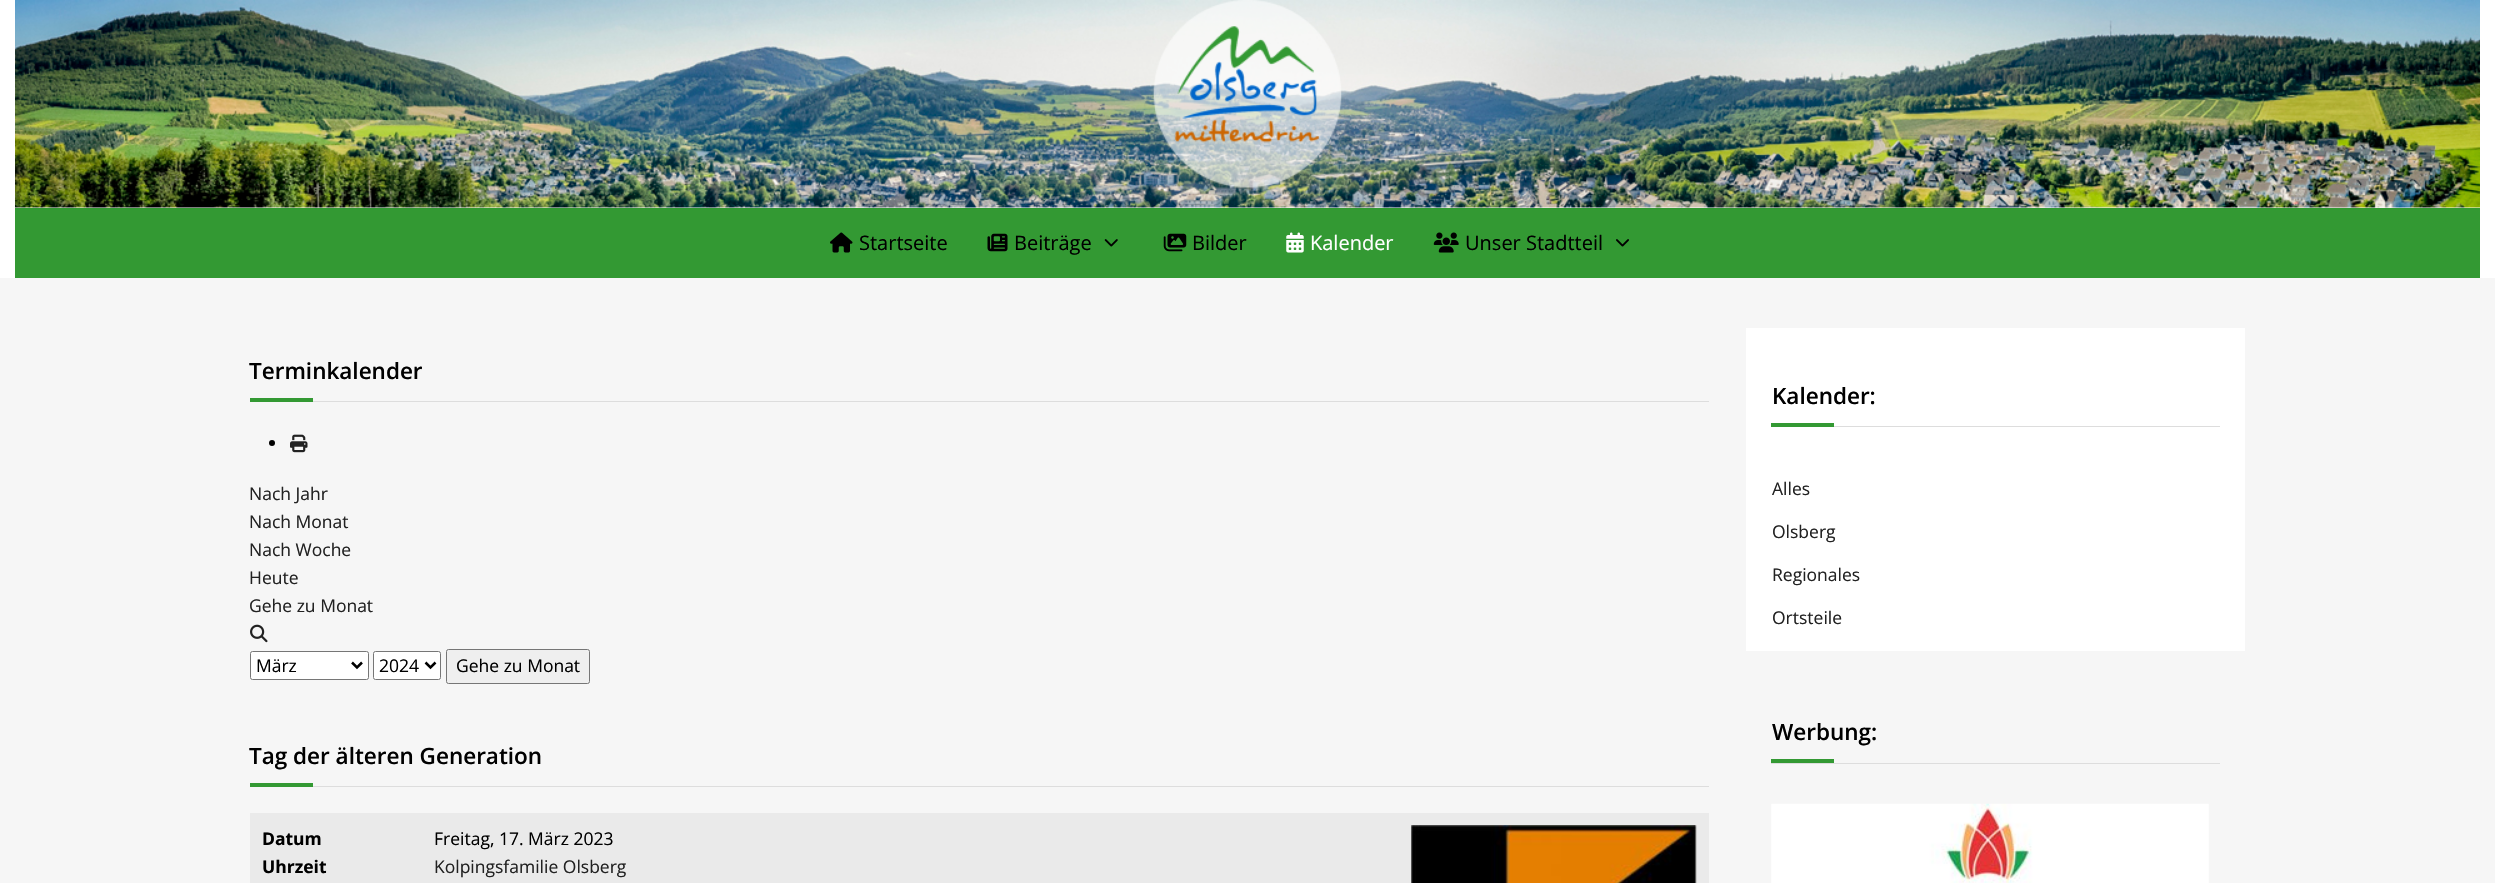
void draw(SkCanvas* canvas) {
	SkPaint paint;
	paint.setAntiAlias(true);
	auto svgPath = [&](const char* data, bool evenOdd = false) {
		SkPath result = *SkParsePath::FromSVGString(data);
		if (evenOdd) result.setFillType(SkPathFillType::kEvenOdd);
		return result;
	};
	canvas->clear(0xffffffff);
	canvas->drawImageRect(SkImages::DeferredFromEncodedData(SkData::MakeFromFileName("img1.png")), SkRect::MakeXYWH(15, 0, 2465, 208), SkSamplingOptions());
	canvas->drawImageRect(SkImages::DeferredFromEncodedData(SkData::MakeFromFileName("img2.png")), SkRect::MakeXYWH(1153, 0, 189, 188), SkSamplingOptions());
	paint.setColor(0xff339933);
	canvas->drawRect(SkRect::MakeXYWH(15, 208, 2465, 70), paint);
	canvas->drawImageRect(SkImages::DeferredFromEncodedData(SkData::MakeFromFileName("img3.png")), SkRect::MakeXYWH(830, 232, 23, 21), SkSamplingOptions());
	SkFont f1(fontMgr->matchFamilyStyle("Open Sans", SkFontStyle::Normal()), 20);
	f1.setSubpixel(true);
	paint.setColor(0xff000000);
	canvas->drawString("Startseite", 859, 250, f1, paint);
	canvas->drawImageRect(SkImages::DeferredFromEncodedData(SkData::MakeFromFileName("img4.png")), SkRect::MakeXYWH(987, 233, 21, 19), SkSamplingOptions());
	canvas->drawString("Beiträge", 1014, 250, f1, paint);
	canvas->drawImageRect(SkImages::DeferredFromEncodedData(SkData::MakeFromFileName("img5.png")), SkRect::MakeXYWH(1104, 239, 14, 8), SkSamplingOptions());
	canvas->drawImageRect(SkImages::DeferredFromEncodedData(SkData::MakeFromFileName("img6.png")), SkRect::MakeXYWH(1163, 233, 24, 19), SkSamplingOptions());
	canvas->drawString("Bilder", 1192, 250, f1, paint);
	canvas->drawImageRect(SkImages::DeferredFromEncodedData(SkData::MakeFromFileName("img7.png")), SkRect::MakeXYWH(1286, 232, 18, 21), SkSamplingOptions());
	paint.setColor(0xffffffff);
	canvas->drawString("Kalender", 1310, 250, f1, paint);
	canvas->drawImageRect(SkImages::DeferredFromEncodedData(SkData::MakeFromFileName("img8.png")), SkRect::MakeXYWH(1433, 232, 26, 21), SkSamplingOptions());
	paint.setColor(0xff000000);
	canvas->drawString("Unser Stadtteil", 1465, 250, f1, paint);
	canvas->drawImageRect(SkImages::DeferredFromEncodedData(SkData::MakeFromFileName("img9.png")), SkRect::MakeXYWH(1616, 239, 13, 8), SkSamplingOptions());
	paint.setColor(0xfff6f6f6);
	canvas->drawRect(SkRect::MakeXYWH(0, 278, 2495, 605), paint);
	paint.setColor(0xffdddddd);
	canvas->drawRect(SkRect::MakeXYWH(313, 401, 1396, 1), paint);
	SkFont f2(fontMgr->matchFamilyStyle("Open Sans", SkFontStyle(600, SkFontStyle::kNormal_Width, SkFontStyle::kUpright_Slant)), 22.5);
	f2.setSubpixel(true);
	paint.setColor(0xff000000);
	canvas->drawString("Terminkalender", 249, 379, f2, paint);
	paint.setColor(0xff339933);
	canvas->drawRect(SkRect::MakeXYWH(250, 398, 63, 4), paint);
	paint.setColor(0xff000000);
	canvas->drawCircle(272, 443, 3, paint);
	canvas->drawImageRect(SkImages::DeferredFromEncodedData(SkData::MakeFromFileName("img10.png")), SkRect::MakeXYWH(290, 434, 18, 19), SkSamplingOptions());
	SkFont f3(fontMgr->matchFamilyStyle("Open Sans", SkFontStyle::Normal()), 17.5);
	f3.setSubpixel(true);
	paint.setColor(0xff222222);
	canvas->drawString("Nach Jahr", 249, 500, f3, paint);
	canvas->drawString("Nach Monat", 249, 528, f3, paint);
	canvas->drawString("Nach Woche", 249, 556, f3, paint);
	canvas->drawString("Heute", 249, 584, f3, paint);
	canvas->drawString("Gehe zu Monat", 249, 612, f3, paint);
	canvas->drawImageRect(SkImages::DeferredFromEncodedData(SkData::MakeFromFileName("img11.png")), SkRect::MakeXYWH(250, 624, 18, 19), SkSamplingOptions());
	paint.setColor(0xffffffff);
	canvas->drawRoundRect(SkRect::MakeXYWH(250.5, 651.5, 118, 28), 2, 2, paint);
	paint.setStroke(true);
	paint.setStrokeWidth(1);
	paint.setColor(0xff767676);
	canvas->drawRoundRect(SkRect::MakeXYWH(250.5, 651.5, 118, 28), 2, 2, paint);
	paint.setStrokeWidth(2.5);
	paint.setColor(0xff000000);
	canvas->drawPath(svgPath("M352 662.5L357 667.5L362 662.5"), paint);
	paint.setStroke(false);
	canvas->drawString("März", 256, 672, f3, paint);
	paint.setColor(0xffffffff);
	canvas->drawRoundRect(SkRect::MakeXYWH(373.5, 651.5, 67, 28), 2, 2, paint);
	paint.setStroke(true);
	paint.setStrokeWidth(1);
	paint.setColor(0xff767676);
	canvas->drawRoundRect(SkRect::MakeXYWH(373.5, 651.5, 67, 28), 2, 2, paint);
	paint.setStrokeWidth(2.5);
	paint.setColor(0xff000000);
	canvas->drawPath(svgPath("M425.5 662.5L430.5 667.5L435.5 662.5"), paint);
	paint.setStroke(false);
	canvas->drawString("2024", 379, 672, f3, paint);
	paint.setColor(0xffefefef);
	canvas->drawRoundRect(SkRect::MakeXYWH(446.5, 649.5, 143, 34), 2, 2, paint);
	paint.setStroke(true);
	paint.setStrokeWidth(1);
	paint.setColor(0xff767676);
	canvas->drawRoundRect(SkRect::MakeXYWH(446.5, 649.5, 143, 34), 2, 2, paint);
	paint.setStroke(false);
	paint.setColor(0xff000000);
	canvas->drawString("Gehe zu Monat", 456, 672, f3, paint);
	paint.setColor(0xffdddddd);
	canvas->drawRect(SkRect::MakeXYWH(313, 786, 1396, 1), paint);
	paint.setColor(0xff000000);
	canvas->drawString("Tag der älteren Generation", 249, 764, f2, paint);
	paint.setColor(0xff339933);
	canvas->drawRect(SkRect::MakeXYWH(250, 783, 63, 4), paint);
	paint.setColor(0xffeaeaea);
	canvas->drawRect(SkRect::MakeXYWH(250, 813, 1459, 70), paint);
	SkFont f4(fontMgr->matchFamilyStyle("Open Sans", SkFontStyle::Bold()), 17.5);
	f4.setSubpixel(true);
	paint.setColor(0xff000000);
	canvas->drawString("Datum", 262, 845, f4, paint);
	canvas->drawString("Uhrzeit", 262, 873, f4, paint);
	canvas->drawString("Freitag, 17. März 2023", 434, 845, f3, paint);
	paint.setColor(0xff222222);
	canvas->drawString("Kolpingsfamilie Olsberg", 434, 873, f3, paint);
	canvas->drawImageRect(SkImages::DeferredFromEncodedData(SkData::MakeFromFileName("img12.png")), SkRect::MakeXYWH(1411, 825, 286, 58), SkSamplingOptions());
	paint.setColor(0xffffffff);
	canvas->drawRect(SkRect::MakeXYWH(1746, 328, 499, 323), paint);
	paint.setColor(0xffdddddd);
	canvas->drawRect(SkRect::MakeXYWH(1834, 426, 386, 1), paint);
	paint.setColor(0xff000000);
	canvas->drawString("Kalender:", 1772, 404, f2, paint);
	paint.setColor(0xff339933);
	canvas->drawRect(SkRect::MakeXYWH(1771, 423, 63, 4), paint);
	paint.setColor(0xff222222);
	canvas->drawString("Alles", 1772, 495, f3, paint);
	canvas->drawString("Olsberg", 1772, 538, f3, paint);
	canvas->drawString("Regionales", 1772, 581, f3, paint);
	canvas->drawString("Ortsteile", 1772, 624, f3, paint);
	paint.setColor(0xffdddddd);
	canvas->drawRect(SkRect::MakeXYWH(1771, 763, 449, 1), paint);
	paint.setColor(0xff000000);
	canvas->drawString("Werbung:", 1772, 740, f2, paint);
	paint.setColor(0xff339933);
	canvas->drawRect(SkRect::MakeXYWH(1771, 759, 63, 4), paint);
	canvas->drawImageRect(SkImages::DeferredFromEncodedData(SkData::MakeFromFileName("img13.png")), SkRect::MakeXYWH(1771, 803, 438, 80), SkSamplingOptions());
}
